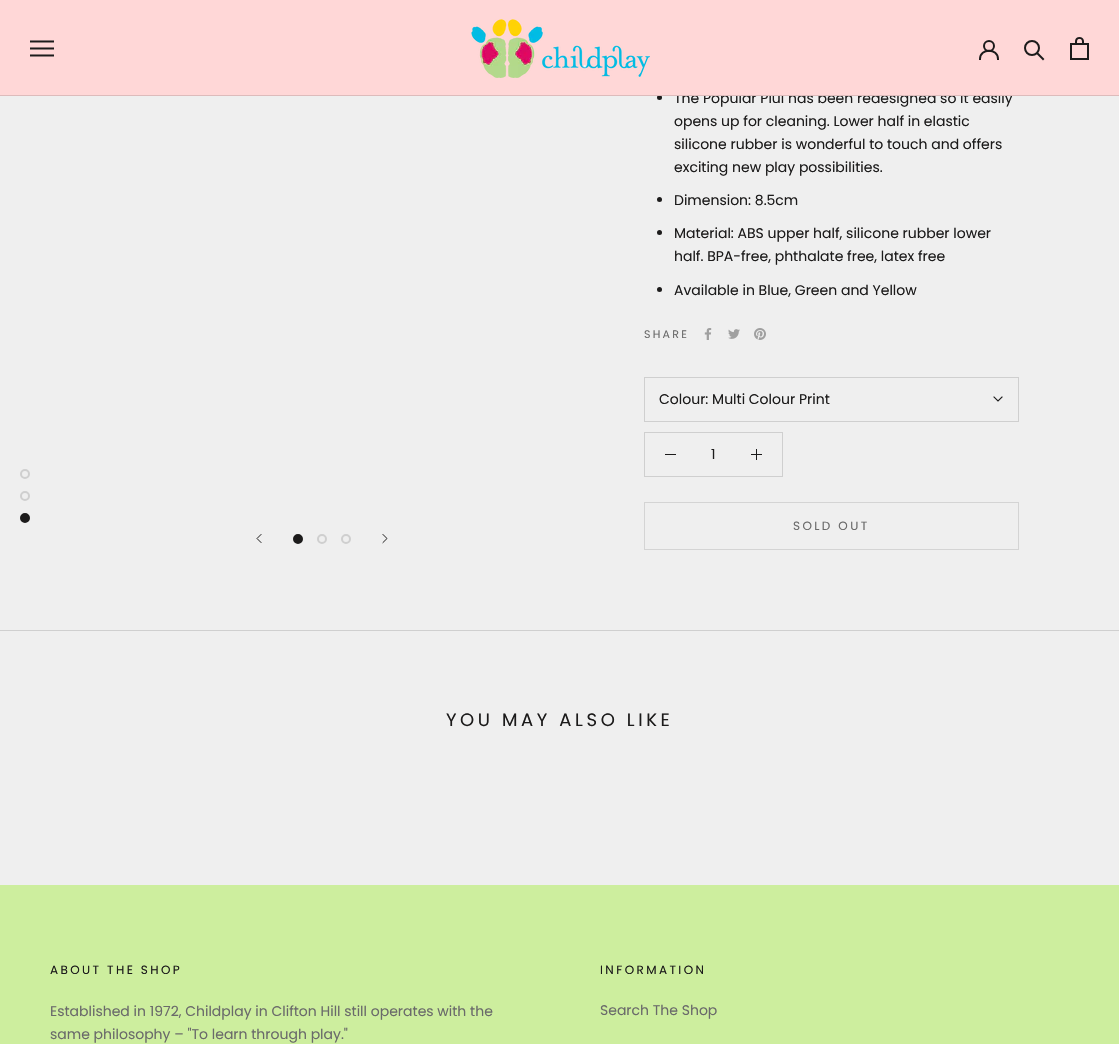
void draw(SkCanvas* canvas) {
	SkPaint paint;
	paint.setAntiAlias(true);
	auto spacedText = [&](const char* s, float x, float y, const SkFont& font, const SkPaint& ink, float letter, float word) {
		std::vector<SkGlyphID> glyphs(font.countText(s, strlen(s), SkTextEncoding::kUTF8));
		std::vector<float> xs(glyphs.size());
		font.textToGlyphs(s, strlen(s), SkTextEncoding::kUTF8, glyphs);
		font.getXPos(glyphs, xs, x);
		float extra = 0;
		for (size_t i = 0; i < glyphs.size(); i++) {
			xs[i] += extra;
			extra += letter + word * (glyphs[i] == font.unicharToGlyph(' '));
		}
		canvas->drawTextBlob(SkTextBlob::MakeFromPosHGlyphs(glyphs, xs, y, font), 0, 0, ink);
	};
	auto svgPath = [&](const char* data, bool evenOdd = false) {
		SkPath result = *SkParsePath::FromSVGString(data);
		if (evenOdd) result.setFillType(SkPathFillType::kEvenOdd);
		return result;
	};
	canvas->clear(0xffefefef);
	SkFont f1(fontMgr->matchFamilyStyle("Poppins", SkFontStyle::Normal()), 14);
	f1.setSubpixel(true);
	paint.setColor(0xff1c1b1b);
	canvas->drawString("The Popular Plui has been redesigned so it easily", 674, 103, f1, paint);
	paint.setColor(0xffffd7d7);
	canvas->drawRect(SkRect::MakeXYWH(0, 0, 1119, 95), paint);
	paint.setColor(0xff1c1b1b);
	canvas->drawCircle(659.5, 97.5, 2.5, paint);
	paint.setColor(0xffddbbbb);
	canvas->drawRect(SkRect::MakeXYWH(0, 95, 1119, 1), paint);
	canvas->drawImageRect(SkImages::DeferredFromEncodedData(SkData::MakeFromFileName("img1.png")), SkRect::MakeXYWH(30, 40, 24, 17), SkSamplingOptions());
	canvas->drawImageRect(SkImages::DeferredFromEncodedData(SkData::MakeFromFileName("img2.png")), SkRect::MakeXYWH(471, 19, 179, 59), SkSamplingOptions());
	paint.setStroke(true);
	paint.setStrokeWidth(2);
	paint.setStrokeCap(SkPaint::kSquare_Cap);
	paint.setColor(0xff1c1b1b);
	canvas->drawPath(svgPath("M980 59C980 48 998 48 998 59"), paint);
	paint.setStrokeCap(SkPaint::kButt_Cap);
	canvas->drawCircle(989, 46, 5, paint);
	paint.setStrokeCap(SkPaint::kSquare_Cap);
	canvas->drawPath(svgPath("M1043 59L1037.5 53.5"), paint);
	paint.setStrokeCap(SkPaint::kButt_Cap);
	canvas->drawCircle(1032, 48, 7, paint);
	canvas->drawImageRect(SkImages::DeferredFromEncodedData(SkData::MakeFromFileName("img3.png")), SkRect::MakeXYWH(1070, 37, 19, 23), SkSamplingOptions());
	paint.setColor(0xffcfcfcf);
	canvas->drawCircle(25, 474, 4, paint);
	canvas->drawCircle(25, 496, 4, paint);
	paint.setStroke(false);
	paint.setColor(0xff1c1b1b);
	canvas->drawCircle(25, 518, 4, paint);
	paint.setStroke(true);
	canvas->drawCircle(25, 518, 4, paint);
	paint.setStrokeWidth(1);
	paint.setStrokeCap(SkPaint::kSquare_Cap);
	canvas->drawPath(svgPath("M261 542.5L257 538.5L261 534.5"), paint);
	paint.setStroke(false);
	canvas->drawCircle(298, 539, 4, paint);
	paint.setStroke(true);
	paint.setStrokeWidth(2);
	paint.setStrokeCap(SkPaint::kButt_Cap);
	canvas->drawCircle(298, 539, 4, paint);
	paint.setColor(0xffcfcfcf);
	canvas->drawCircle(322, 539, 4, paint);
	canvas->drawCircle(346, 539, 4, paint);
	paint.setStrokeWidth(1);
	paint.setStrokeCap(SkPaint::kSquare_Cap);
	paint.setColor(0xff1c1b1b);
	canvas->drawPath(svgPath("M383 542.5L387 538.5L383 534.5"), paint);
	paint.setStroke(false);
	canvas->drawString("opens up for cleaning. Lower half in elastic", 674, 126, f1, paint);
	canvas->drawString("silicone rubber is wonderful to touch and offers", 674, 149, f1, paint);
	canvas->drawString("exciting new play possibilities.", 674, 172, f1, paint);
	canvas->drawCircle(659.5, 199.5, 2.5, paint);
	canvas->drawString("Dimension: 8.5cm", 674, 205, f1, paint);
	canvas->drawCircle(659.5, 232.5, 2.5, paint);
	canvas->drawString("Material: ABS upper half, silicone rubber lower", 674, 238, f1, paint);
	canvas->drawString("half. BPA-free, phthalate free, latex free", 674, 261, f1, paint);
	canvas->drawCircle(659.5, 289.5, 2.5, paint);
	canvas->drawString("Available in Blue, Green and Yellow", 674, 295, f1, paint);
	SkFont f2(fontMgr->matchFamilyStyle("Poppins", SkFontStyle::Normal()), 11);
	f2.setSubpixel(true);
	paint.setColor(0xff6a6a6a);
	spacedText("SHARE", 644, 338, f2, paint, 2.25, 0);
	canvas->drawImageRect(SkImages::DeferredFromEncodedData(SkData::MakeFromFileName("img4.png")), SkRect::MakeXYWH(704, 328, 8, 12), SkSamplingOptions());
	canvas->drawImageRect(SkImages::DeferredFromEncodedData(SkData::MakeFromFileName("img5.png")), SkRect::MakeXYWH(728, 329, 12, 10), SkSamplingOptions());
	canvas->drawImageRect(SkImages::DeferredFromEncodedData(SkData::MakeFromFileName("img6.png")), SkRect::MakeXYWH(754, 328, 12, 12), SkSamplingOptions());
	paint.setStroke(true);
	paint.setStrokeCap(SkPaint::kButt_Cap);
	paint.setColor(0xffcfcfcf);
	canvas->drawRect(SkRect::MakeXYWH(644.5, 377.5, 374, 44), paint);
	paint.setStroke(false);
	paint.setColor(0xff1c1b1b);
	canvas->drawString("Colour: Multi Colour Print", 659, 404, f1, paint);
	paint.setStroke(true);
	paint.setStrokeWidth(1.1);
	paint.setStrokeCap(SkPaint::kSquare_Cap);
	canvas->drawPath(svgPath("M1002 397L998 401L994 397"), paint);
	paint.setStrokeWidth(1);
	paint.setStrokeCap(SkPaint::kButt_Cap);
	paint.setColor(0xffcfcfcf);
	canvas->drawRect(SkRect::MakeXYWH(644.5, 432.5, 138, 44), paint);
	paint.setStroke(false);
	paint.setColor(0xff1c1b1b);
	canvas->drawRect(SkRect::MakeXYWH(665, 454, 11, 1), paint);
	canvas->drawString("1", 711, 459, f1, paint);
	canvas->drawRect(SkRect::MakeXYWH(756, 449, 1, 11), paint);
	canvas->drawRect(SkRect::MakeXYWH(751, 454, 11, 1), paint);
	paint.setStroke(true);
	paint.setColor(0xffd4d4d4);
	canvas->drawRect(SkRect::MakeXYWH(644.5, 502.5, 374, 47), paint);
	SkFont f3(fontMgr->matchFamilyStyle("Poppins", SkFontStyle::Normal()), 12);
	f3.setSubpixel(true);
	paint.setStroke(false);
	paint.setColor(0xff6a6a6a);
	spacedText("SOLD OUT", 793, 530, f3, paint, 2.4, 0);
	paint.setColor(0xffcfcfcf);
	canvas->drawRect(SkRect::MakeXYWH(0, 630, 1119, 1), paint);
	SkFont f4(fontMgr->matchFamilyStyle("Poppins", SkFontStyle::Normal()), 18);
	f4.setSubpixel(true);
	paint.setColor(0xff1c1b1b);
	spacedText("YOU MAY ALSO LIKE", 446, 726, f4, paint, 3.6, 0);
	paint.setColor(0xffcdee9e);
	canvas->drawRect(SkRect::MakeXYWH(0, 885, 1119, 159), paint);
	paint.setColor(0xff1c1b1b);
	spacedText("ABOUT THE SHOP", 50, 974, f3, paint, 2.4, 0);
	paint.setColor(0xff6a6a6a);
	canvas->drawString("Established in 1972, Childplay in Clifton Hill still operates with the", 50, 1016, f1, paint);
	canvas->drawString("same philosophy – \"To learn through play.\"", 50, 1039, f1, paint);
	paint.setColor(0xff1c1b1b);
	spacedText("INFORMATION", 600, 974, f3, paint, 2.4, 0);
	paint.setColor(0xff6a6a6a);
	canvas->drawString("Search The Shop", 600, 1015, f1, paint);
}
